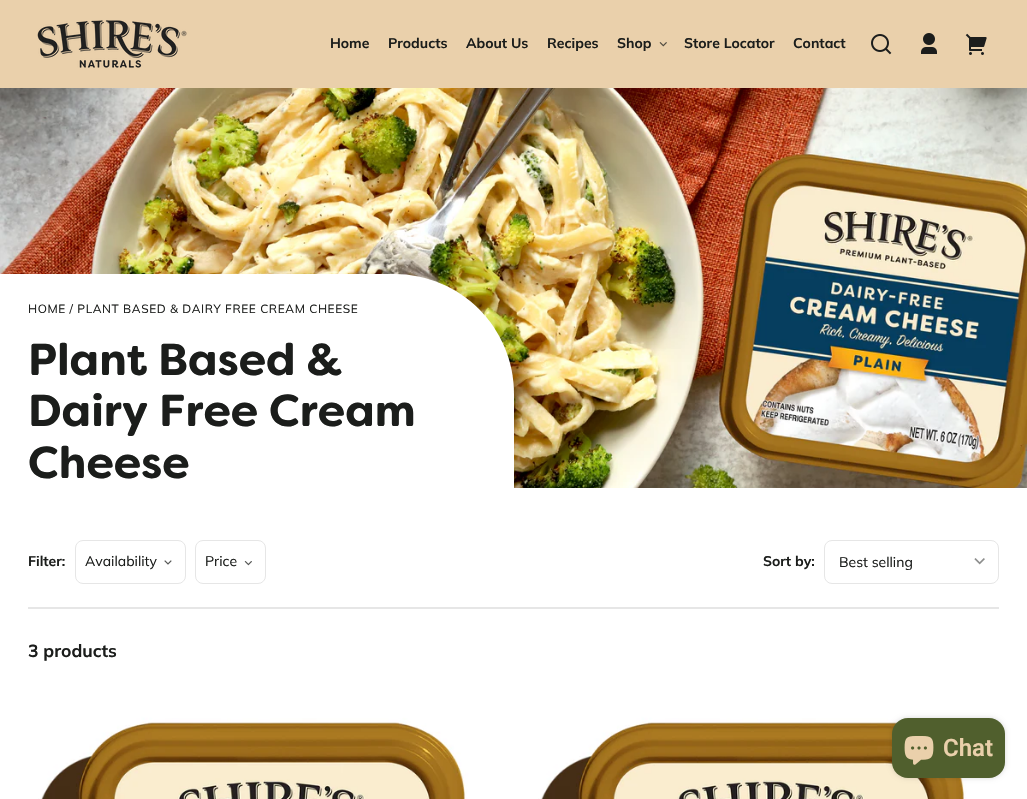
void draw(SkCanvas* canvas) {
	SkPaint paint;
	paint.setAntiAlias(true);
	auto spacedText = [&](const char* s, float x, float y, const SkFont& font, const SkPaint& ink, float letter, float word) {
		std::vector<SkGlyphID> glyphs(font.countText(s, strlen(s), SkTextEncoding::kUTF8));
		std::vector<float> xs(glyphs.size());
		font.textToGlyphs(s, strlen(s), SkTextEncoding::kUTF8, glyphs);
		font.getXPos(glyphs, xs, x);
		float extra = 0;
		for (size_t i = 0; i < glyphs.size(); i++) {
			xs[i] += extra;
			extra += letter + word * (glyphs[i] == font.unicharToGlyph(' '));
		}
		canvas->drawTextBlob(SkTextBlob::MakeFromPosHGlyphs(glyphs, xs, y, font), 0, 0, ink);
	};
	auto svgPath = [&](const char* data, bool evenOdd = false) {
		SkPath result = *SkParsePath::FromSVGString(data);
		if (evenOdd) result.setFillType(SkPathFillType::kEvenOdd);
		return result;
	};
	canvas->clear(0xffffffff);
	paint.setColor(0xffead0ab);
	canvas->drawRect(SkRect::MakeXYWH(0, 0, 1027, 88), paint);
	canvas->drawImageRect(SkImages::DeferredFromEncodedData(SkData::MakeFromFileName("img1.png")), SkRect::MakeXYWH(37, 20, 150, 48), SkSamplingOptions());
	SkFont f1(fontMgr->matchFamilyStyle("Muli", SkFontStyle::Bold()), 14);
	f1.setSubpixel(true);
	paint.setColor(0xff1b1d1b);
	canvas->drawString("Home", 330, 48, f1, paint);
	canvas->drawString("Products", 388, 48, f1, paint);
	canvas->drawString("About Us", 466, 48, f1, paint);
	canvas->drawString("Recipes", 547, 48, f1, paint);
	canvas->drawString("Shop", 617, 48, f1, paint);
	canvas->drawImageRect(SkImages::DeferredFromEncodedData(SkData::MakeFromFileName("img2.png")), SkRect::MakeXYWH(659, 42, 8, 5), SkSamplingOptions());
	canvas->drawString("Store Locator", 684, 48, f1, paint);
	canvas->drawString("Contact", 793, 48, f1, paint);
	canvas->drawImageRect(SkImages::DeferredFromEncodedData(SkData::MakeFromFileName("img3.png")), SkRect::MakeXYWH(871, 34, 21, 21), SkSamplingOptions());
	canvas->drawImageRect(SkImages::DeferredFromEncodedData(SkData::MakeFromFileName("img4.png")), SkRect::MakeXYWH(921, 33, 16, 21), SkSamplingOptions());
	canvas->drawImageRect(SkImages::DeferredFromEncodedData(SkData::MakeFromFileName("img5.png")), SkRect::MakeXYWH(965, 33, 22, 22), SkSamplingOptions());
	canvas->drawImageRect(SkImages::DeferredFromEncodedData(SkData::MakeFromFileName("img6.png")), SkRect::MakeXYWH(0, 88, 1027, 400), SkSamplingOptions());
	paint.setColor(0xffffffff);
	canvas->drawPath(svgPath("M0 274H394C460.5 274 514 327.5 514 394V516H0Z"), paint);
	SkFont f2(fontMgr->matchFamilyStyle("Muli", SkFontStyle::Normal()), 11.9);
	f2.setSubpixel(true);
	paint.setColor(0xff1b1d1b);
	spacedText("HOME / PLANT BASED & DAIRY FREE CREAM CHEESE", 28, 313, f2, paint, 0.6, 0);
	SkFont f3(fontMgr->matchFamilyStyle("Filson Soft", SkFontStyle::Bold()), 44.75);
	f3.setSubpixel(true);
	canvas->drawString("Plant Based &", 28, 375, f3, paint);
	canvas->drawString("Dairy Free Cream", 28, 426, f3, paint);
	canvas->drawString("Cheese", 28, 478, f3, paint);
	canvas->drawString("Filter:", 28, 566, f1, paint);
	paint.setStroke(true);
	paint.setStrokeWidth(1);
	paint.setColor(0xffe6e6e6);
	canvas->drawRoundRect(SkRect::MakeXYWH(75.5, 540.5, 110, 43), 7.5, 7.5, paint);
	SkFont f4(fontMgr->matchFamilyStyle("Muli", SkFontStyle::Normal()), 14);
	f4.setSubpixel(true);
	paint.setStroke(false);
	paint.setColor(0xff1b1d1b);
	canvas->drawString("Availability", 85, 566, f4, paint);
	canvas->drawImageRect(SkImages::DeferredFromEncodedData(SkData::MakeFromFileName("img7.png")), SkRect::MakeXYWH(164, 560, 8, 5), SkSamplingOptions());
	paint.setStroke(true);
	paint.setColor(0xffe6e6e6);
	canvas->drawRoundRect(SkRect::MakeXYWH(195.5, 540.5, 70, 43), 7.5, 7.5, paint);
	paint.setStroke(false);
	paint.setColor(0xff1b1d1b);
	canvas->drawString("Price", 205, 566, f4, paint);
	canvas->drawImageRect(SkImages::DeferredFromEncodedData(SkData::MakeFromFileName("img8.png")), SkRect::MakeXYWH(244, 561, 8, 5), SkSamplingOptions());
	canvas->drawString("Sort by:", 763, 566, f1, paint);
	canvas->drawImageRect(SkImages::DeferredFromEncodedData(SkData::MakeFromFileName("img9.png")), SkRect::MakeXYWH(974, 558, 11, 7), SkSamplingOptions());
	paint.setStroke(true);
	paint.setColor(0xffe6e6e6);
	canvas->drawRoundRect(SkRect::MakeXYWH(824.5, 540.5, 174, 43), 7.5, 7.5, paint);
	paint.setStroke(false);
	paint.setColor(0xff1b1d1b);
	canvas->drawString("Best selling", 839, 567, f4, paint);
	paint.setColor(0xffe6e6e6);
	canvas->drawRect(SkRect::MakeXYWH(28, 607, 971, 2), paint);
	SkFont f5(fontMgr->matchFamilyStyle("Muli", SkFontStyle::Bold()), 17.5);
	f5.setSubpixel(true);
	paint.setColor(0xff1b1d1b);
	canvas->drawString("3 products", 28, 657, f5, paint);
	canvas->drawImageRect(SkImages::DeferredFromEncodedData(SkData::MakeFromFileName("img10.png")), SkRect::MakeXYWH(28, 677, 472, 122), SkSamplingOptions());
	canvas->drawImageRect(SkImages::DeferredFromEncodedData(SkData::MakeFromFileName("img11.png")), SkRect::MakeXYWH(528, 677, 471, 122), SkSamplingOptions());
	paint.setColor(0x26000000);
	paint.setMaskFilter(SkMaskFilter::MakeBlur(kNormal_SkBlurStyle, 2.5));
	canvas->drawRoundRect(SkRect::MakeXYWH(892, 718, 113, 60), 16, 16, paint);
	paint.setMaskFilter(nullptr);
	paint.setColor(0xff505f2d);
	canvas->drawRoundRect(SkRect::MakeXYWH(892, 718, 113, 60), 16, 16, paint);
	canvas->drawImageRect(SkImages::DeferredFromEncodedData(SkData::MakeFromFileName("img12.png")), SkRect::MakeXYWH(904, 736, 30, 29), SkSamplingOptions());
	SkFont f6(fontMgr->matchFamilyStyle("Roboto", SkFontStyle(600, SkFontStyle::kNormal_Width, SkFontStyle::kUpright_Slant)), 24);
	f6.setSubpixel(true);
	paint.setColor(0xffead0ab);
	canvas->drawString("Chat", 943, 756, f6, paint);
}
